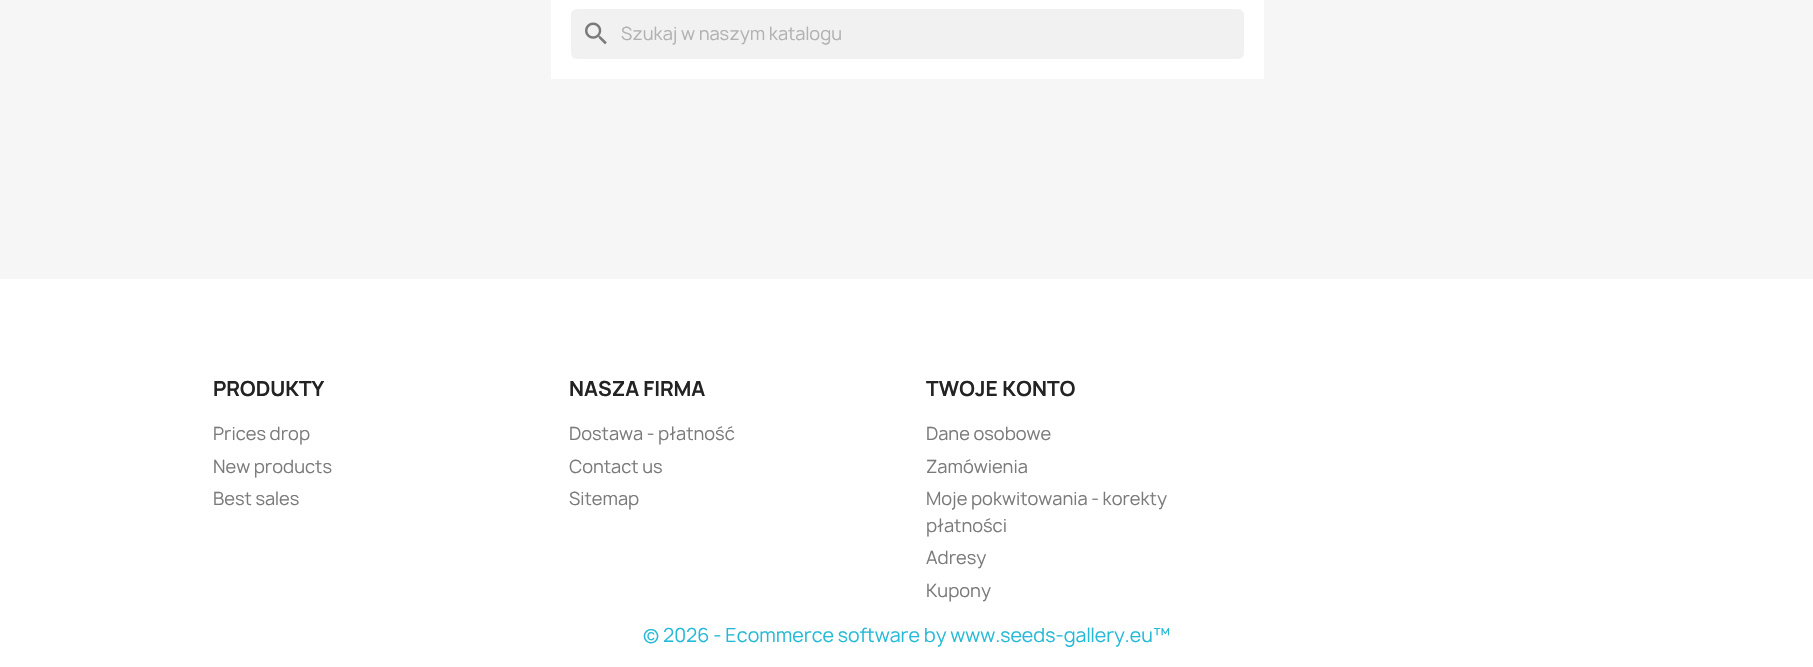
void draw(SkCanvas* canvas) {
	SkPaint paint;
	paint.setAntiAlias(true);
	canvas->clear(0xffffffff);
	paint.setColor(0xfff6f6f6);
	canvas->drawRect(SkRect::MakeXYWH(0, 0, 1813, 279), paint);
	paint.setColor(0xffffffff);
	canvas->drawRect(SkRect::MakeXYWH(551, 0, 713, 79), paint);
	paint.setColor(0xfff1f1f1);
	canvas->drawRoundRect(SkRect::MakeXYWH(571, 9, 673, 50), 6, 6, paint);
	canvas->drawImageRect(SkImages::DeferredFromEncodedData(SkData::MakeFromFileName("img1.png")), SkRect::MakeXYWH(585, 22, 22, 23), SkSamplingOptions());
	SkFont f1(fontMgr->matchFamilyStyle("Manrope", SkFontStyle::Normal()), 17.5);
	f1.setSubpixel(true);
	paint.setColor(0xffb1b1b1);
	canvas->drawString("Szukaj w naszym katalogu", 621, 40, f1, paint);
	SkFont f2(fontMgr->matchFamilyStyle("Manrope", SkFontStyle::Bold()), 20);
	f2.setSubpixel(true);
	paint.setColor(0xff232323);
	canvas->drawString("PRODUKTY", 213, 396, f2, paint);
	paint.setColor(0xff7a7a7a);
	canvas->drawString("Prices drop", 213, 440, f1, paint);
	canvas->drawString("New products", 213, 473, f1, paint);
	canvas->drawString("Best sales", 213, 505, f1, paint);
	paint.setColor(0xff232323);
	canvas->drawString("NASZA FIRMA", 569, 396, f2, paint);
	paint.setColor(0xff7a7a7a);
	canvas->drawString("Dostawa - płatność", 569, 440, f1, paint);
	canvas->drawString("Contact us", 569, 473, f1, paint);
	canvas->drawString("Sitemap", 569, 505, f1, paint);
	paint.setColor(0xff232323);
	canvas->drawString("TWOJE KONTO", 926, 396, f2, paint);
	paint.setColor(0xff7a7a7a);
	canvas->drawString("Dane osobowe", 926, 440, f1, paint);
	canvas->drawString("Zamówienia", 926, 473, f1, paint);
	canvas->drawString("Moje pokwitowania - korekty", 926, 505, f1, paint);
	canvas->drawString("płatności", 926, 532, f1, paint);
	canvas->drawString("Adresy", 926, 564, f1, paint);
	canvas->drawString("Kupony", 926, 597, f1, paint);
	SkFont f3(fontMgr->matchFamilyStyle("Manrope", SkFontStyle::Normal()), 18.75);
	f3.setSubpixel(true);
	paint.setColor(0xff24b9d7);
	canvas->drawString("© 2026 - Ecommerce software by www.seeds-gallery.eu™", 643, 642, f3, paint);
}
